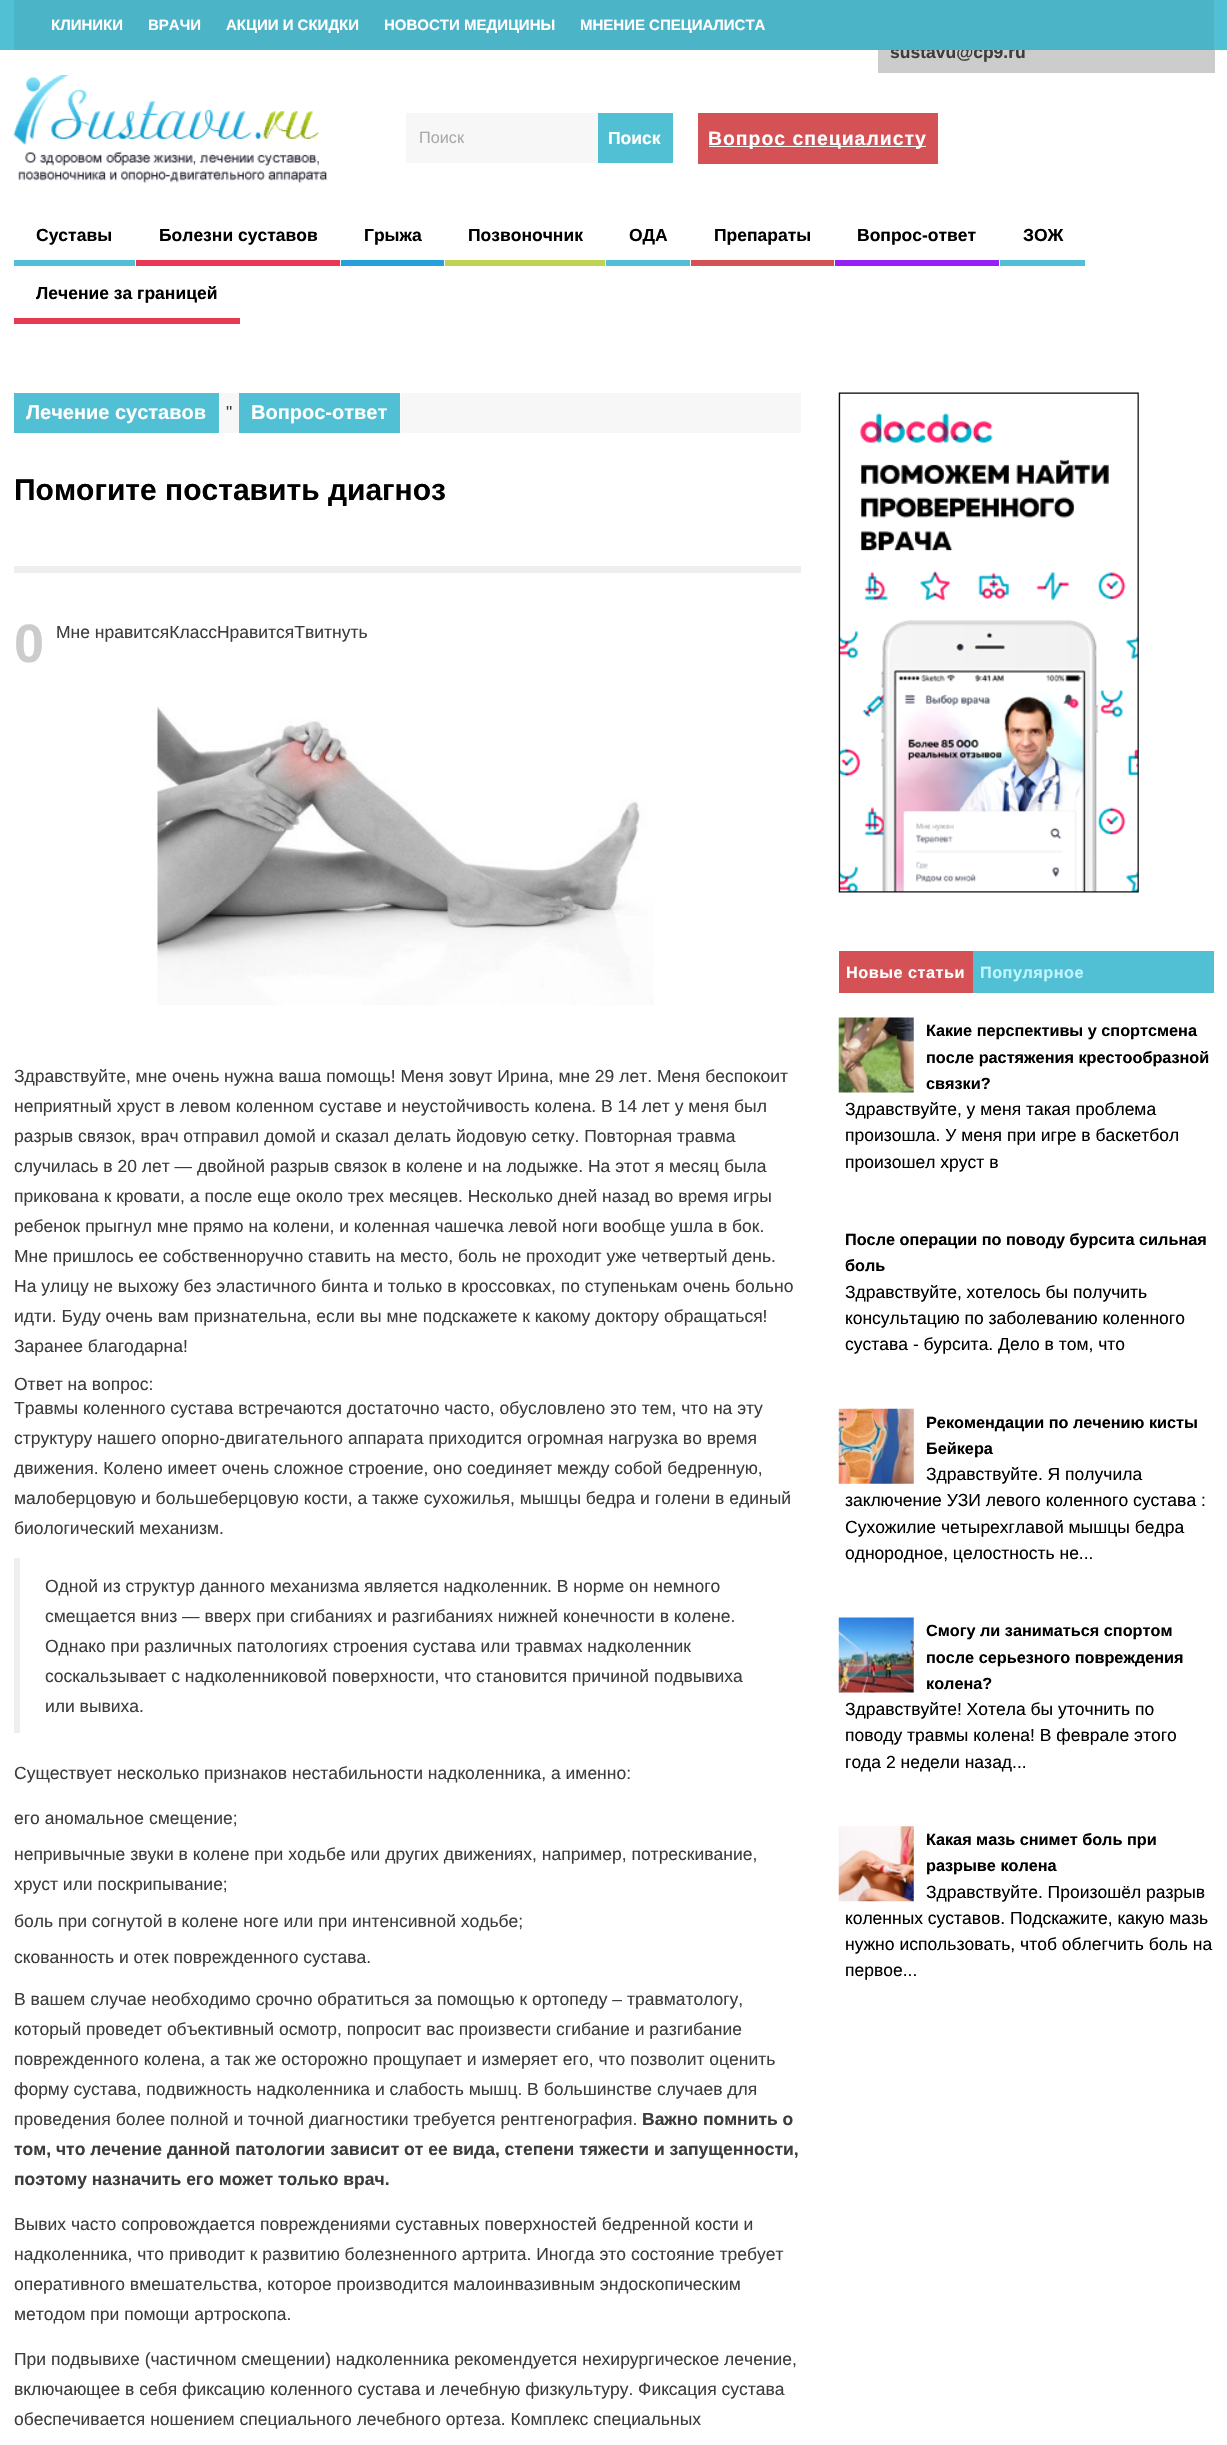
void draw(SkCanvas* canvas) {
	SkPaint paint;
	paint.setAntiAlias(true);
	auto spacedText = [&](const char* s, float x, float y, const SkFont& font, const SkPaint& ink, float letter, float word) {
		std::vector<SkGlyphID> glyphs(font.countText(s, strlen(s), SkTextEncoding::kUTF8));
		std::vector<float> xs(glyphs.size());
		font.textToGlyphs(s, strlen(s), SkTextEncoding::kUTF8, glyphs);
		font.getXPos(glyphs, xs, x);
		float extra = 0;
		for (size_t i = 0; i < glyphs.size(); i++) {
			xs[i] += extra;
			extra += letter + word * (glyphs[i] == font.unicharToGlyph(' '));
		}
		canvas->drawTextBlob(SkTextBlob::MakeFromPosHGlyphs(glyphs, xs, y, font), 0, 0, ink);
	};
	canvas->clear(0xffffffff);
	paint.setColor(0xffcccccc);
	canvas->drawRect(SkRect::MakeXYWH(878, 50, 337, 23), paint);
	SkFont f1(fontMgr->matchFamilyStyle("Liberation Sans", SkFontStyle::Bold()), 17.5);
	f1.setSubpixel(true);
	paint.setColor(0xff3e3c3c);
	canvas->drawString("sustavu@cp9.ru", 890, 58, f1, paint);
	paint.setColor(0xff52c0d4);
	canvas->drawRect(SkRect::MakeXYWH(0, 0, 1227, 50), paint);
	paint.setColor(0xff4cb4c7);
	canvas->drawRect(SkRect::MakeXYWH(14, 0, 1200, 50), paint);
	SkFont f2(fontMgr->matchFamilyStyle("Liberation Sans", SkFontStyle::Bold()), 15);
	f2.setSubpixel(true);
	paint.setColor(0xffffffff);
	canvas->drawString("КЛИНИКИ", 51, 30, f2, paint);
	canvas->drawString("ВРАЧИ", 148, 30, f2, paint);
	canvas->drawString("АКЦИИ И СКИДКИ", 226, 30, f2, paint);
	canvas->drawString("НОВОСТИ МЕДИЦИНЫ", 384, 30, f2, paint);
	canvas->drawString("МНЕНИЕ СПЕЦИАЛИСТА", 580, 30, f2, paint);
	canvas->drawImageRect(SkImages::DeferredFromEncodedData(SkData::MakeFromFileName("img1.png")), SkRect::MakeXYWH(13, 75, 315, 108), SkSamplingOptions());
	paint.setColor(0xfff7f7f7);
	canvas->drawRect(SkRect::MakeXYWH(406, 113, 192, 50), paint);
	SkFont f3(fontMgr->matchFamilyStyle("Liberation Sans", SkFontStyle::Normal()), 16.25);
	f3.setSubpixel(true);
	paint.setColor(0xffaaaaaa);
	canvas->drawString("Поиск", 419, 143, f3, paint);
	paint.setColor(0xff52c0d4);
	canvas->drawRect(SkRect::MakeXYWH(598, 113, 75, 50), paint);
	paint.setColor(0xffffffff);
	canvas->drawString("Поиск", 608, 144, f1, paint);
	paint.setColor(0xffd45255);
	canvas->drawRect(SkRect::MakeXYWH(698, 113, 240, 51), paint);
	paint.setColor(0xffffffff);
	canvas->drawRect(SkRect::MakeXYWH(709, 146, 217, 1), paint);
	SkFont f4(fontMgr->matchFamilyStyle("Liberation Sans", SkFontStyle::Bold()), 19.4);
	f4.setSubpixel(true);
	spacedText("Вопрос специалисту", 708, 145, f4, paint, 1, 0);
	paint.setColor(0xff52c0d4);
	canvas->drawRect(SkRect::MakeXYWH(14, 260, 121, 6), paint);
	paint.setColor(0xff000000);
	canvas->drawString("Суставы", 36, 241, f1, paint);
	paint.setColor(0xffe93952);
	canvas->drawRect(SkRect::MakeXYWH(136, 260, 204, 6), paint);
	paint.setColor(0xff000000);
	canvas->drawString("Болезни суставов", 159, 241, f1, paint);
	paint.setColor(0xff26a0d8);
	canvas->drawRect(SkRect::MakeXYWH(341, 260, 103, 6), paint);
	paint.setColor(0xff000000);
	canvas->drawString("Грыжа", 364, 241, f1, paint);
	paint.setColor(0xffbdd452);
	canvas->drawRect(SkRect::MakeXYWH(445, 260, 160, 6), paint);
	paint.setColor(0xff000000);
	canvas->drawString("Позвоночник", 468, 241, f1, paint);
	paint.setColor(0xff52c0d4);
	canvas->drawRect(SkRect::MakeXYWH(606, 260, 84, 6), paint);
	paint.setColor(0xff000000);
	canvas->drawString("ОДА", 629, 241, f1, paint);
	paint.setColor(0xffd45255);
	canvas->drawRect(SkRect::MakeXYWH(691, 260, 143, 6), paint);
	paint.setColor(0xff000000);
	canvas->drawString("Препараты", 714, 241, f1, paint);
	paint.setColor(0xff9521f7);
	canvas->drawRect(SkRect::MakeXYWH(835, 260, 164, 6), paint);
	paint.setColor(0xff000000);
	canvas->drawString("Вопрос-ответ", 857, 241, f1, paint);
	paint.setColor(0xff52c0d4);
	canvas->drawRect(SkRect::MakeXYWH(1000, 260, 85, 6), paint);
	paint.setColor(0xff000000);
	canvas->drawString("ЗОЖ", 1023, 241, f1, paint);
	paint.setColor(0xffe93952);
	canvas->drawRect(SkRect::MakeXYWH(14, 318, 226, 6), paint);
	paint.setColor(0xff000000);
	canvas->drawString("Лечение за границей", 36, 299, f1, paint);
	paint.setColor(0xfff7f7f7);
	canvas->drawRect(SkRect::MakeXYWH(220, 393, 581, 40), paint);
	paint.setColor(0xff52c0d4);
	canvas->drawRect(SkRect::MakeXYWH(14, 393, 205, 40), paint);
	SkFont f5(fontMgr->matchFamilyStyle("Liberation Sans", SkFontStyle::Bold()), 20);
	f5.setSubpixel(true);
	paint.setColor(0xffffffff);
	canvas->drawString("Лечение суставов", 26, 419, f5, paint);
	SkFont f6(fontMgr->matchFamilyStyle("Liberation Sans", SkFontStyle::Normal()), 17.5);
	f6.setSubpixel(true);
	paint.setColor(0xff3e3c3c);
	canvas->drawString("\"", 226, 418, f6, paint);
	paint.setColor(0xff52c0d4);
	canvas->drawRect(SkRect::MakeXYWH(239, 393, 161, 40), paint);
	paint.setColor(0xffffffff);
	canvas->drawRect(SkRect::MakeXYWH(400, 393, 1, 40), paint);
	canvas->drawString("Вопрос-ответ", 251, 419, f5, paint);
	SkFont f7(fontMgr->matchFamilyStyle("Liberation Sans", SkFontStyle::Bold()), 30);
	f7.setSubpixel(true);
	paint.setColor(0xff000000);
	canvas->drawString("Помогите поставить диагноз", 14, 500, f7, paint);
	paint.setColor(0xffeeeeee);
	canvas->drawRect(SkRect::MakeXYWH(14, 566, 787, 7), paint);
	SkFont f8(fontMgr->matchFamilyStyle("Liberation Sans", SkFontStyle::Bold()), 54);
	f8.setSubpixel(true);
	paint.setColor(0xffcccccc);
	canvas->drawString("0", 14, 662, f8, paint);
	paint.setColor(0xff3e3c3c);
	canvas->drawString("Мне нравитсяКлассНравитсяТвитнуть", 56, 638, f6, paint);
	canvas->drawImageRect(SkImages::DeferredFromEncodedData(SkData::MakeFromFileName("img2.png")), SkRect::MakeXYWH(157, 706, 497, 299), SkSamplingOptions());
	canvas->drawString("Здравствуйте, мне очень нужна ваша помощь! Меня зовут Ирина, мне 29 лет. Меня беспокоит", 14, 1082, f6, paint);
	canvas->drawString("неприятный хруст в левом коленном суставе и неустойчивость колена. В 14 лет у меня был", 14, 1112, f6, paint);
	canvas->drawString("разрыв связок, врач отправил домой и сказал делать йодовую сетку. Повторная травма", 14, 1142, f6, paint);
	canvas->drawString("случилась в 20 лет — двойной разрыв связок в колене и на лодыжке. На этот я месяц была", 14, 1172, f6, paint);
	canvas->drawString("прикована к кровати, а после еще около трех месяцев. Несколько дней назад во время игры", 14, 1202, f6, paint);
	canvas->drawString("ребенок прыгнул мне прямо на колени, и коленная чашечка левой ноги вообще ушла в бок.", 14, 1232, f6, paint);
	canvas->drawString("Мне пришлось ее собственноручно ставить на место, боль не проходит уже четвертый день.", 14, 1262, f6, paint);
	canvas->drawString("На улицу не выхожу без эластичного бинта и только в кроссовках, по ступенькам очень больно", 14, 1292, f6, paint);
	canvas->drawString("идти. Буду очень вам признательна, если вы мне подскажете к какому доктору обращаться!", 14, 1322, f6, paint);
	canvas->drawString("Заранее благодарна!", 14, 1352, f6, paint);
	canvas->drawString("Ответ на вопрос:", 14, 1390, f6, paint);
	canvas->drawString("Травмы коленного сустава встречаются достаточно часто, обусловлено это тем, что на эту", 14, 1414, f6, paint);
	canvas->drawString("структуру нашего опорно-двигательного аппарата приходится огромная нагрузка во время", 14, 1444, f6, paint);
	canvas->drawString("движения. Колено имеет очень сложное строение, оно соединяет между собой бедренную,", 14, 1474, f6, paint);
	canvas->drawString("малоберцовую и большеберцовую кости, а также сухожилья, мышцы бедра и голени в единый", 14, 1504, f6, paint);
	canvas->drawString("биологический механизм.", 14, 1534, f6, paint);
	paint.setColor(0xffeeeeee);
	canvas->drawRect(SkRect::MakeXYWH(14, 1558, 6, 175), paint);
	paint.setColor(0xff3e3c3c);
	canvas->drawString("Одной из структур данного механизма является надколенник. В норме он немного", 45, 1592, f6, paint);
	canvas->drawString("смещается вниз — вверх при сгибаниях и разгибаниях нижней конечности в колене.", 45, 1622, f6, paint);
	canvas->drawString("Однако при различных патологиях строения сустава или травмах надколенник", 45, 1652, f6, paint);
	canvas->drawString("соскальзывает с надколенниковой поверхности, что становится причиной подвывиха", 45, 1682, f6, paint);
	canvas->drawString("или вывиха.", 45, 1712, f6, paint);
	canvas->drawString("Существует несколько признаков нестабильности надколенника, а именно:", 14, 1779, f6, paint);
	canvas->drawString("его аномальное смещение;", 14, 1824, f6, paint);
	canvas->drawString("непривычные звуки в колене при ходьбе или других движениях, например, потрескивание,", 14, 1860, f6, paint);
	canvas->drawString("хруст или поскрипывание;", 14, 1890, f6, paint);
	canvas->drawString("боль при согнутой в колене ноге или при интенсивной ходьбе;", 14, 1927, f6, paint);
	canvas->drawString("скованность и отек поврежденного сустава.", 14, 1963, f6, paint);
	canvas->drawString("В вашем случае необходимо срочно обратиться за помощью к ортопеду – травматологу,", 14, 2005, f6, paint);
	canvas->drawString("который проведет объективный осмотр, попросит вас произвести сгибание и разгибание", 14, 2035, f6, paint);
	canvas->drawString("поврежденного колена, а так же осторожно прощупает и измеряет его, что позволит оценить", 14, 2065, f6, paint);
	canvas->drawString("форму сустава, подвижность надколенника и слабость мышц. В большинстве случаев для", 14, 2095, f6, paint);
	canvas->drawString("проведения более полной и точной диагностики требуется рентгенография.", 14, 2125, f6, paint);
	canvas->drawString("Важно помнить о", 642, 2125, f1, paint);
	canvas->drawString("том, что лечение данной патологии зависит от ее вида, степени тяжести и запущенности,", 14, 2155, f1, paint);
	canvas->drawString("поэтому назначить его может только врач.", 14, 2185, f1, paint);
	canvas->drawString("Вывих часто сопровождается повреждениями суставных поверхностей бедренной кости и", 14, 2230, f6, paint);
	canvas->drawString("надколенника, что приводит к развитию болезненного артрита. Иногда это состояние требует", 14, 2260, f6, paint);
	canvas->drawString("оперативного вмешательства, которое производится малоинвазивным эндоскопическим", 14, 2290, f6, paint);
	canvas->drawString("методом при помощи артроскопа.", 14, 2320, f6, paint);
	canvas->drawString("При подвывихе (частичном смещении) надколенника рекомендуется нехирургическое лечение,", 14, 2365, f6, paint);
	canvas->drawString("включающее в себя фиксацию коленного сустава и лечебную физкультуру. Фиксация сустава", 14, 2395, f6, paint);
	canvas->drawString("обеспечивается ношением специального лечебного ортеза. Комплекс специальных", 14, 2425, f6, paint);
	canvas->drawImageRect(SkImages::DeferredFromEncodedData(SkData::MakeFromFileName("img3.png")), SkRect::MakeXYWH(838, 392, 301, 501), SkSamplingOptions());
	paint.setColor(0xff52c0d4);
	canvas->drawRect(SkRect::MakeXYWH(973, 951, 241, 42), paint);
	paint.setColor(0xffd45255);
	canvas->drawRect(SkRect::MakeXYWH(839, 951, 134, 42), paint);
	SkFont f9(fontMgr->matchFamilyStyle("Liberation Sans", SkFontStyle::Bold()), 16.25);
	f9.setSubpixel(true);
	paint.setColor(0xffffffff);
	spacedText("Новые статьи", 846, 978, f9, paint, 0.5, 0);
	paint.setColor(0xffc0f5ff);
	spacedText("Популярное", 980, 978, f9, paint, 0.5, 0);
	canvas->drawImageRect(SkImages::DeferredFromEncodedData(SkData::MakeFromFileName("img4.png")), SkRect::MakeXYWH(838, 1017, 76, 76), SkSamplingOptions());
	paint.setColor(0xff000000);
	canvas->drawString("Какие перспективы у спортсмена", 926, 1036, f9, paint);
	canvas->drawString("после растяжения крестообразной", 926, 1063, f9, paint);
	canvas->drawString("связки?", 926, 1089, f9, paint);
	canvas->drawString("Здравствуйте, у меня такая проблема", 845, 1115, f6, paint);
	canvas->drawString("произошла. У меня при игре в баскетбол", 845, 1141, f6, paint);
	canvas->drawString("произошел хруст в", 845, 1168, f6, paint);
	canvas->drawString("После операции по поводу бурсита сильная", 845, 1245, f9, paint);
	canvas->drawString("боль", 845, 1271, f9, paint);
	canvas->drawString("Здравствуйте, хотелось бы получить", 845, 1298, f6, paint);
	canvas->drawString("консультацию по заболеванию коленного", 845, 1324, f6, paint);
	canvas->drawString("сустава - бурсита. Дело в том, что", 845, 1350, f6, paint);
	canvas->drawImageRect(SkImages::DeferredFromEncodedData(SkData::MakeFromFileName("img5.png")), SkRect::MakeXYWH(838, 1408, 76, 76), SkSamplingOptions());
	canvas->drawString("Рекомендации по лечению кисты", 926, 1428, f9, paint);
	canvas->drawString("Бейкера", 926, 1454, f9, paint);
	canvas->drawString("Здравствуйте. Я получила", 926, 1480, f6, paint);
	canvas->drawString("заключение УЗИ левого коленного сустава :", 845, 1506, f6, paint);
	canvas->drawString("Сухожилие четырехглавой мышцы бедра", 845, 1533, f6, paint);
	canvas->drawString("однородное, целостность не...", 845, 1559, f6, paint);
	canvas->drawImageRect(SkImages::DeferredFromEncodedData(SkData::MakeFromFileName("img6.png")), SkRect::MakeXYWH(838, 1617, 76, 76), SkSamplingOptions());
	canvas->drawString("Смогу ли заниматься спортом", 926, 1636, f9, paint);
	canvas->drawString("после серьезного повреждения", 926, 1663, f9, paint);
	canvas->drawString("колена?", 926, 1689, f9, paint);
	canvas->drawString("Здравствуйте! Хотела бы уточнить по", 845, 1715, f6, paint);
	canvas->drawString("поводу травмы колена! В феврале этого", 845, 1741, f6, paint);
	canvas->drawString("года 2 недели назад...", 845, 1768, f6, paint);
	canvas->drawImageRect(SkImages::DeferredFromEncodedData(SkData::MakeFromFileName("img7.png")), SkRect::MakeXYWH(838, 1826, 76, 76), SkSamplingOptions());
	canvas->drawString("Какая мазь снимет боль при", 926, 1845, f9, paint);
	canvas->drawString("разрыве колена", 926, 1871, f9, paint);
	canvas->drawString("Здравствуйте. Произошёл разрыв", 926, 1898, f6, paint);
	canvas->drawString("коленных суставов. Подскажите, какую мазь", 845, 1924, f6, paint);
	canvas->drawString("нужно использовать, чтоб облегчить боль на", 845, 1950, f6, paint);
	canvas->drawString("первое...", 845, 1976, f6, paint);
}
